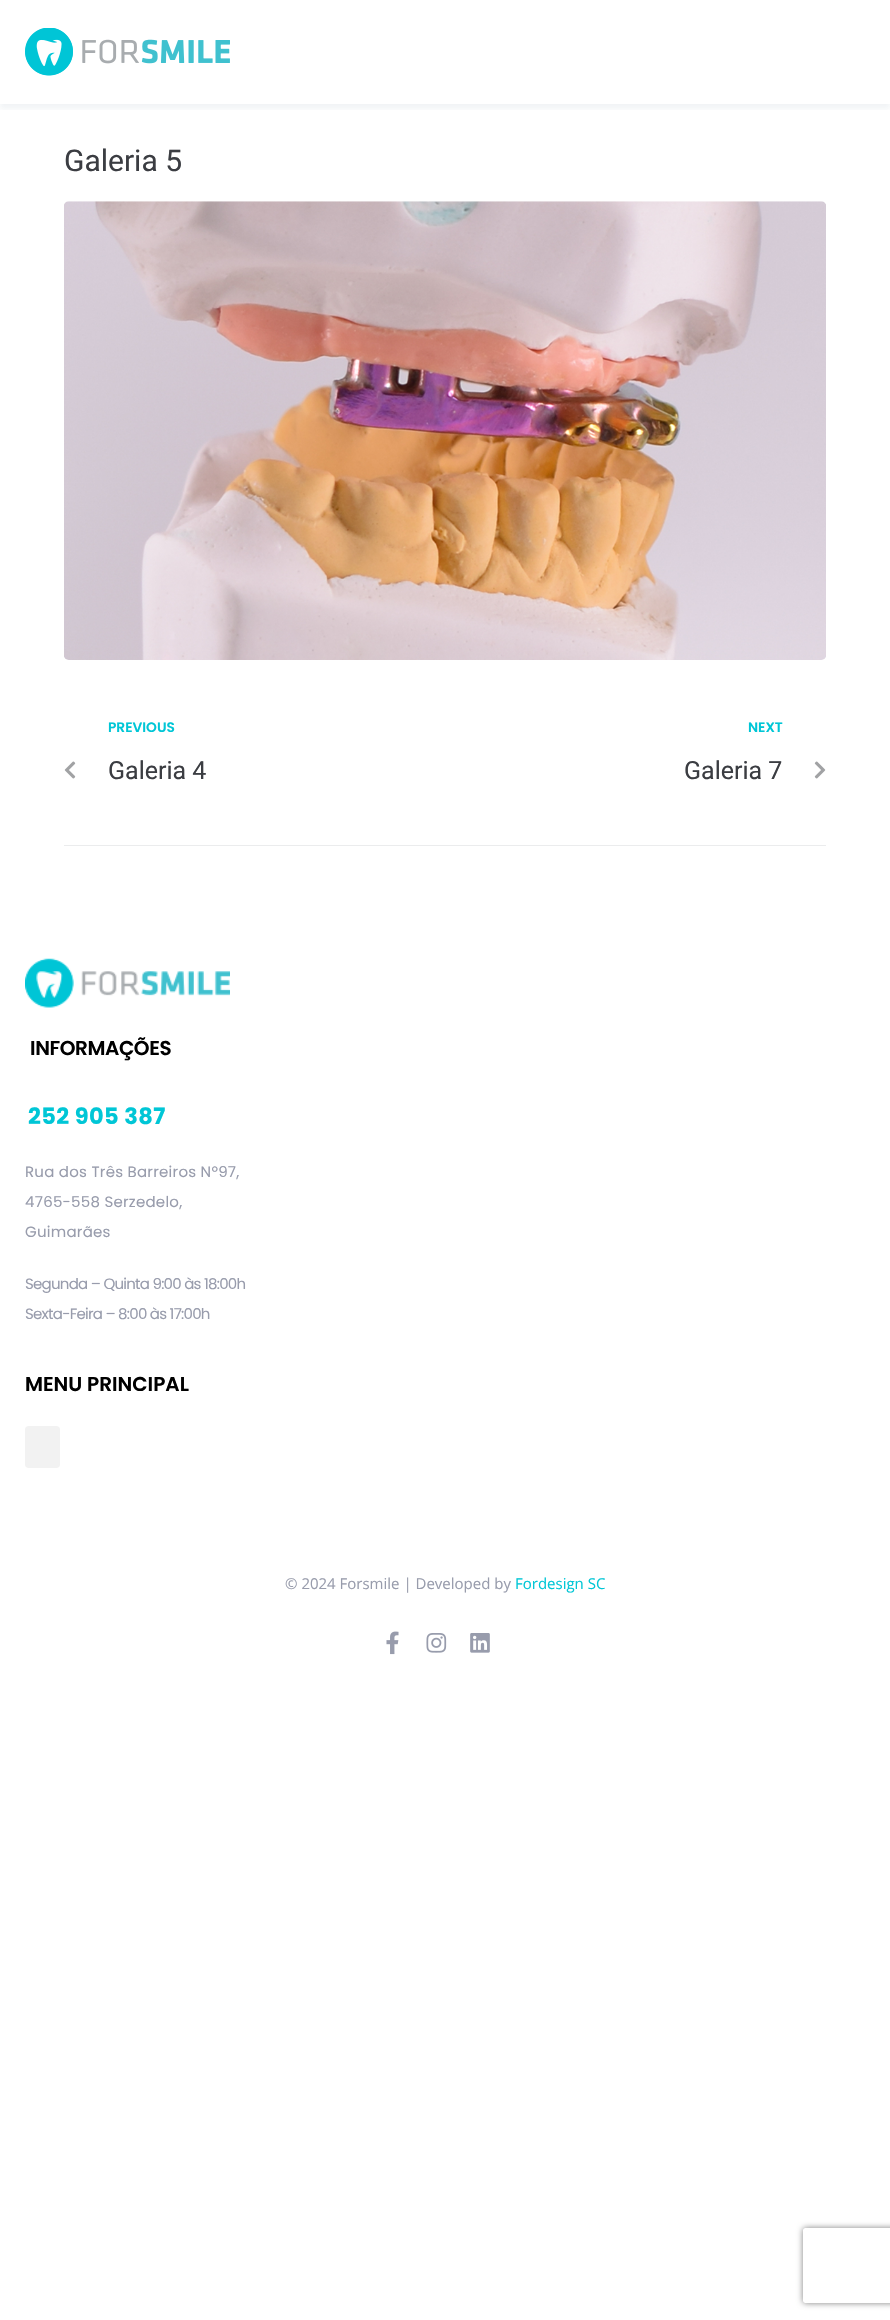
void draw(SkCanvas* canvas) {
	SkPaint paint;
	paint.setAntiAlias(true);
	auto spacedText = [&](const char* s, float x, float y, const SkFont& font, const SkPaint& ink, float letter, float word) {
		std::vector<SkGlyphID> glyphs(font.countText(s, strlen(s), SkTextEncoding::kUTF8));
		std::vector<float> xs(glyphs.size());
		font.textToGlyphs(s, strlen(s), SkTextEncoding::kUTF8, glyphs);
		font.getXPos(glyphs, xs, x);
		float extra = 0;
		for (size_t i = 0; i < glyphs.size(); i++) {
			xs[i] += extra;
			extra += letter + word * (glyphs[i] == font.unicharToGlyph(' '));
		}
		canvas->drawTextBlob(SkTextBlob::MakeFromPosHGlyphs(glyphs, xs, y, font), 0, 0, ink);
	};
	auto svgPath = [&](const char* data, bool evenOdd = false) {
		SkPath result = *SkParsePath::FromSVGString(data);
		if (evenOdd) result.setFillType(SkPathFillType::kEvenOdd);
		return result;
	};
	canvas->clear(0xffffffff);
	canvas->save();
	canvas->clipRect(SkRect::MakeXYWH(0, 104, 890, 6));
	paint.setColor(0x0d092f57);
	paint.setMaskFilter(SkMaskFilter::MakeBlur(kNormal_SkBlurStyle, 2.5));
	canvas->drawRect(SkRect::MakeXYWH(0, 5, 890, 104), paint);
	paint.setMaskFilter(nullptr);
	canvas->restore();
	canvas->drawImageRect(SkImages::DeferredFromEncodedData(SkData::MakeFromFileName("img1.png")), SkRect::MakeXYWH(25, 28, 205, 48), SkSamplingOptions());
	SkFont f1(fontMgr->matchFamilyStyle("Roboto", SkFontStyle::Normal()), 30);
	f1.setSubpixel(true);
	paint.setColor(0xff3b3d42);
	canvas->drawString("Galeria 5", 64, 171, f1, paint);
	canvas->drawImageRect(SkImages::DeferredFromEncodedData(SkData::MakeFromFileName("img2.png")), SkRect::MakeXYWH(64, 201, 762, 459), SkSamplingOptions());
	paint.setColor(0xffebeced);
	canvas->drawRect(SkRect::MakeXYWH(64, 845, 762, 1), paint);
	SkFont f2(fontMgr->matchFamilyStyle("Poppins", SkFontStyle(600, SkFontStyle::kNormal_Width, SkFontStyle::kUpright_Slant)), 13.75);
	f2.setSubpixel(true);
	paint.setColor(0xff00c6d6);
	canvas->drawString("PREVIOUS", 108, 732, f2, paint);
	canvas->drawImageRect(SkImages::DeferredFromEncodedData(SkData::MakeFromFileName("img3.png")), SkRect::MakeXYWH(64, 761, 12, 18), SkSamplingOptions());
	SkFont f3(fontMgr->matchFamilyStyle("Roboto", SkFontStyle::Normal()), 25);
	f3.setSubpixel(true);
	paint.setColor(0xff3b3d42);
	canvas->drawString("Galeria 4", 108, 779, f3, paint);
	paint.setColor(0xff00c6d6);
	canvas->drawString("NEXT", 748, 732, f2, paint);
	paint.setColor(0xff3b3d42);
	canvas->drawString("Galeria 7", 684, 779, f3, paint);
	canvas->drawImageRect(SkImages::DeferredFromEncodedData(SkData::MakeFromFileName("img4.png")), SkRect::MakeXYWH(814, 761, 12, 18), SkSamplingOptions());
	canvas->drawImageRect(SkImages::DeferredFromEncodedData(SkData::MakeFromFileName("img5.png")), SkRect::MakeXYWH(25, 958, 205, 50), SkSamplingOptions());
	SkFont f4(fontMgr->matchFamilyStyle("Poppins", SkFontStyle(600, SkFontStyle::kNormal_Width, SkFontStyle::kUpright_Slant)), 20);
	f4.setSubpixel(true);
	paint.setColor(0xff000000);
	spacedText("INFORMAÇÕES", 30, 1055, f4, paint, -0.4, 0);
	SkFont f5(fontMgr->matchFamilyStyle("Poppins", SkFontStyle::Bold()), 22.5);
	f5.setSubpixel(true);
	paint.setColor(0xff00c6d6);
	spacedText("252 905 387", 28, 1124, f5, paint, 0.4, 0);
	SkFont f6(fontMgr->matchFamilyStyle("Poppins", SkFontStyle::Normal()), 15);
	f6.setSubpixel(true);
	paint.setColor(0xff989cac);
	spacedText("Rua dos Três Barreiros Nº97,", 25, 1177, f6, paint, 0.25, 0);
	spacedText("4765-558 Serzedelo,", 25, 1207, f6, paint, 0.25, 0);
	spacedText("Guimarães", 25, 1237, f6, paint, 0.25, 0);
	spacedText("Segunda – Quinta 9:00 às 18:00h", 25, 1289, f6, paint, -0.75, 0);
	spacedText("Sexta-Feira – 8:00 às 17:00h", 25, 1319, f6, paint, -0.75, 0);
	paint.setColor(0xff000000);
	canvas->drawString("MENU PRINCIPAL", 25, 1391, f4, paint);
	paint.setColor(0xfff2f2f2);
	canvas->drawRoundRect(SkRect::MakeXYWH(25, 1426, 35, 42), 4, 4, paint);
	SkFont f7(fontMgr->matchFamilyStyle("Open Sans", SkFontStyle::Normal()), 15);
	f7.setSubpixel(true);
	paint.setColor(0xff989cac);
	canvas->drawString("© 2024 Forsmile | Developed by", 285, 1589, f7, paint);
	paint.setColor(0xff00c6d6);
	canvas->drawString("Fordesign SC", 515, 1589, f7, paint);
	canvas->drawImageRect(SkImages::DeferredFromEncodedData(SkData::MakeFromFileName("img6.png")), SkRect::MakeXYWH(386, 1631, 13, 24), SkSamplingOptions());
	canvas->drawImageRect(SkImages::DeferredFromEncodedData(SkData::MakeFromFileName("img7.png")), SkRect::MakeXYWH(426, 1633, 21, 20), SkSamplingOptions());
	canvas->drawImageRect(SkImages::DeferredFromEncodedData(SkData::MakeFromFileName("img8.png")), SkRect::MakeXYWH(470, 1633, 20, 20), SkSamplingOptions());
	canvas->save();
	canvas->clipPath(svgPath("M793 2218H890V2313H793ZM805.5 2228H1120.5C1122 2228 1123 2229 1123 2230.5V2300.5C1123 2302 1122 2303 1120.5 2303H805.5C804 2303 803 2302 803 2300.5V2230.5C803 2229 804 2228 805.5 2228Z", true), true);
	paint.setColor(0xff808080);
	paint.setMaskFilter(SkMaskFilter::MakeBlur(kNormal_SkBlurStyle, 3));
	canvas->drawRoundRect(SkRect::MakeXYWH(803, 2228, 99, 75), 2.5, 2.5, paint);
	paint.setMaskFilter(nullptr);
	canvas->restore();
}
